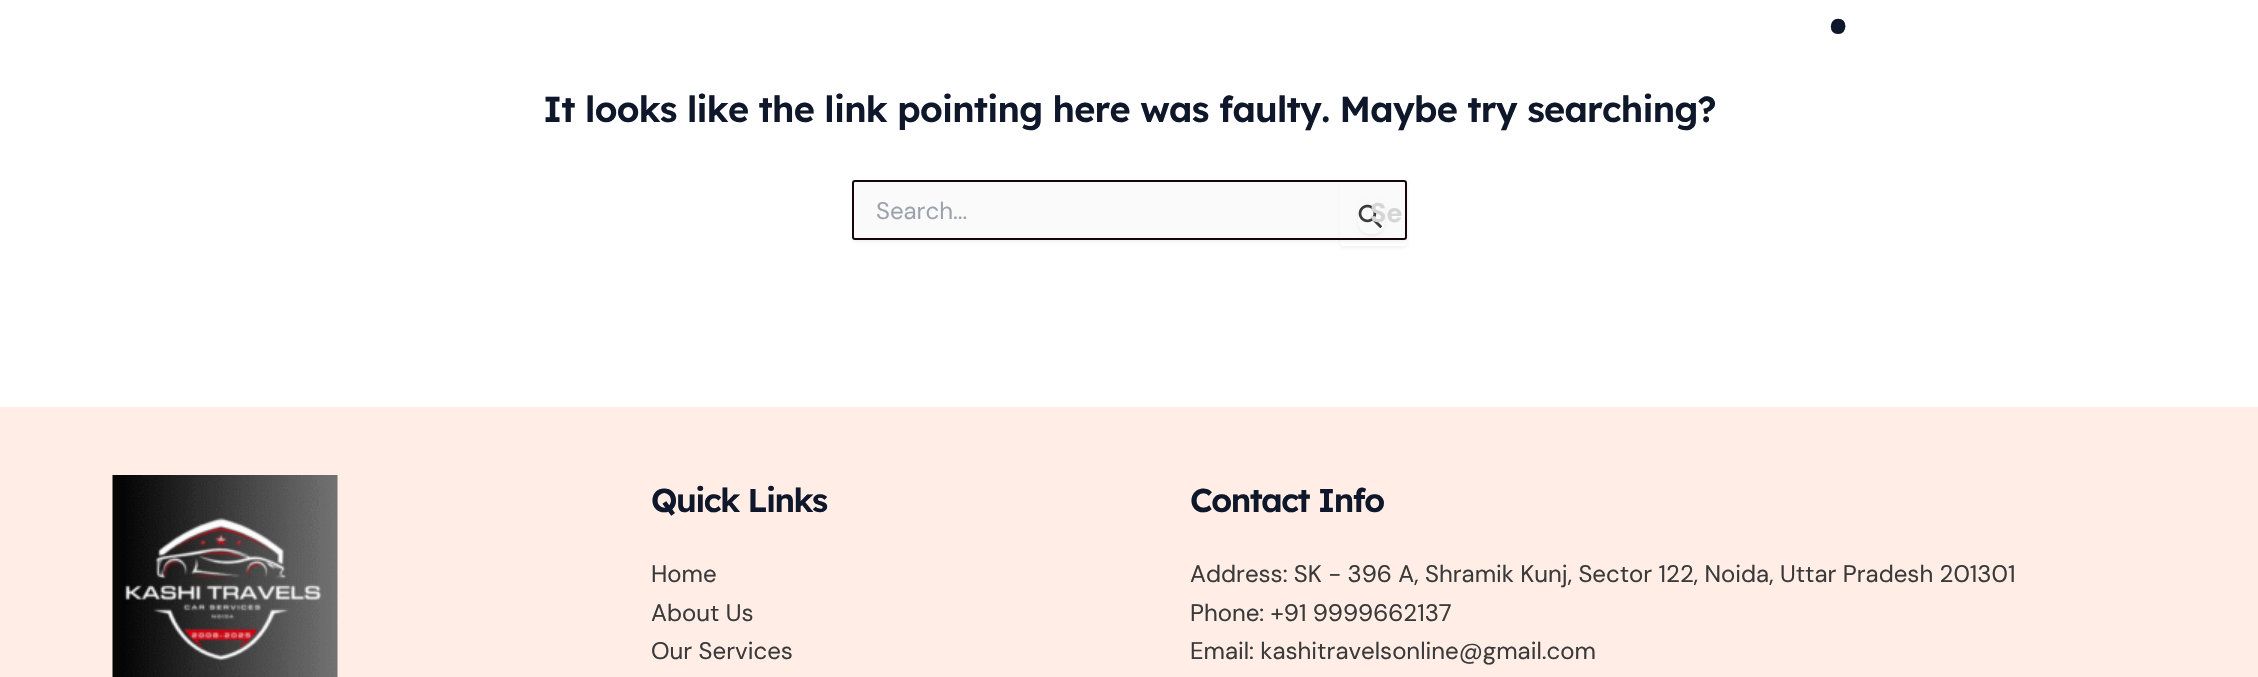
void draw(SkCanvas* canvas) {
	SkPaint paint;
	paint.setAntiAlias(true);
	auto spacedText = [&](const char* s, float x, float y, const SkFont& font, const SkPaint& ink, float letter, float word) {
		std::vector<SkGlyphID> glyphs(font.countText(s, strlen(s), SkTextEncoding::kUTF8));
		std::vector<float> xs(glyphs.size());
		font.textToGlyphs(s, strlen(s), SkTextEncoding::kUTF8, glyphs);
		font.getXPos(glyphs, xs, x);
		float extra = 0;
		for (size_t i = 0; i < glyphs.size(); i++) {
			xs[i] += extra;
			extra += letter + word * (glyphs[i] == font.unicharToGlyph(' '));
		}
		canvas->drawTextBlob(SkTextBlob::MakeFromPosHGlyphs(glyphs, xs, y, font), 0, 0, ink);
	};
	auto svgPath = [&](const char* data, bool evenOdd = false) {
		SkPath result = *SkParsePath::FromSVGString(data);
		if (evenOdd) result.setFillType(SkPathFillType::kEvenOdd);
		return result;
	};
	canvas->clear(0xffffffff);
	SkFont f1(fontMgr->matchFamilyStyle("Lexend", SkFontStyle(600, SkFontStyle::kNormal_Width, SkFontStyle::kUpright_Slant)), 90);
	f1.setSubpixel(true);
	paint.setColor(0xff0f172a);
	canvas->drawString(".", 1827, 33, f1, paint);
	SkFont f2(fontMgr->matchFamilyStyle("Lexend", SkFontStyle(600, SkFontStyle::kNormal_Width, SkFontStyle::kUpright_Slant)), 36);
	f2.setSubpixel(true);
	spacedText("It looks like the link pointing here was faulty. Maybe try searching?", 543, 122, f2, paint, -0.75, 0);
	paint.setColor(0x0d000000);
	paint.setMaskFilter(SkMaskFilter::MakeBlur(kNormal_SkBlurStyle, 1.5));
	canvas->drawRoundRect(SkRect::MakeXYWH(852, 182, 555, 60), 3, 3, paint);
	paint.setMaskFilter(nullptr);
	paint.setColor(0xfffafafa);
	canvas->drawRoundRect(SkRect::MakeXYWH(853, 181, 553, 58), 2, 2, paint);
	paint.setStroke(true);
	paint.setStrokeWidth(2);
	paint.setColor(0xff140609);
	canvas->drawRoundRect(SkRect::MakeXYWH(853, 181, 553, 58), 2, 2, paint);
	SkFont f3(fontMgr->matchFamilyStyle("DM Sans", SkFontStyle::Normal()), 24);
	f3.setSubpixel(true);
	paint.setStroke(false);
	paint.setColor(0xff9ca3af);
	canvas->drawString("Search...", 876, 219, f3, paint);
	canvas->save();
	canvas->clipPath(svgPath("M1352 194H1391V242H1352ZM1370 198H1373C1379.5 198 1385 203.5 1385 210V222C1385 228.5 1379.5 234 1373 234H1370C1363.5 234 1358 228.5 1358 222V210C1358 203.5 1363.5 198 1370 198Z", true), true);
	paint.setColor(0x0d000000);
	paint.setMaskFilter(SkMaskFilter::MakeBlur(kNormal_SkBlurStyle, 1.5));
	canvas->drawRoundRect(SkRect::MakeXYWH(1358, 200, 27, 36), 12, 12, paint);
	paint.setMaskFilter(nullptr);
	canvas->restore();
	canvas->drawImageRect(SkImages::DeferredFromEncodedData(SkData::MakeFromFileName("img1.png")), SkRect::MakeXYWH(1358, 204, 24, 25), SkSamplingOptions());
	canvas->save();
	canvas->clipPath(svgPath("M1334 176H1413V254H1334ZM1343 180H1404C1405.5 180 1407 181.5 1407 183V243C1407 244.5 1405.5 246 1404 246H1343C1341.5 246 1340 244.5 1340 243V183C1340 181.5 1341.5 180 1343 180Z", true), true);
	paint.setMaskFilter(SkMaskFilter::MakeBlur(kNormal_SkBlurStyle, 1.5));
	canvas->drawRoundRect(SkRect::MakeXYWH(1340, 182, 67, 66), 3, 3, paint);
	paint.setMaskFilter(nullptr);
	canvas->restore();
	SkFont f4(fontMgr->matchFamilyStyle("DM Sans", SkFontStyle::Bold()), 27);
	f4.setSubpixel(true);
	paint.setColor(0xffd6d5d5);
	canvas->drawString("Se", 1370, 222, f4, paint);
	paint.setColor(0xffffede6);
	canvas->drawRect(SkRect::MakeXYWH(0, 407, 2258, 270), paint);
	canvas->drawImageRect(SkImages::DeferredFromEncodedData(SkData::MakeFromFileName("img2.png")), SkRect::MakeXYWH(112, 475, 226, 202), SkSamplingOptions());
	SkFont f5(fontMgr->matchFamilyStyle("Lexend", SkFontStyle(600, SkFontStyle::kNormal_Width, SkFontStyle::kUpright_Slant)), 33);
	f5.setSubpixel(true);
	paint.setColor(0xff0f172a);
	spacedText("Quick Links", 651, 512, f5, paint, -1.5, 0);
	paint.setColor(0xff3a3a3a);
	canvas->drawString("Home", 651, 582, f3, paint);
	canvas->drawString("About Us", 651, 621, f3, paint);
	canvas->drawString("Our Services", 651, 659, f3, paint);
	paint.setColor(0xff0f172a);
	spacedText("Contact Info", 1190, 512, f5, paint, -1.5, 0);
	paint.setColor(0xff3a3a3a);
	canvas->drawString("Address: SK - 396 A, Shramik Kunj, Sector 122, Noida, Uttar Pradesh 201301", 1190, 582, f3, paint);
	canvas->drawString("Phone: +91 9999662137", 1190, 621, f3, paint);
	canvas->drawString("Email: kashitravelsonline@gmail.com", 1190, 659, f3, paint);
}
